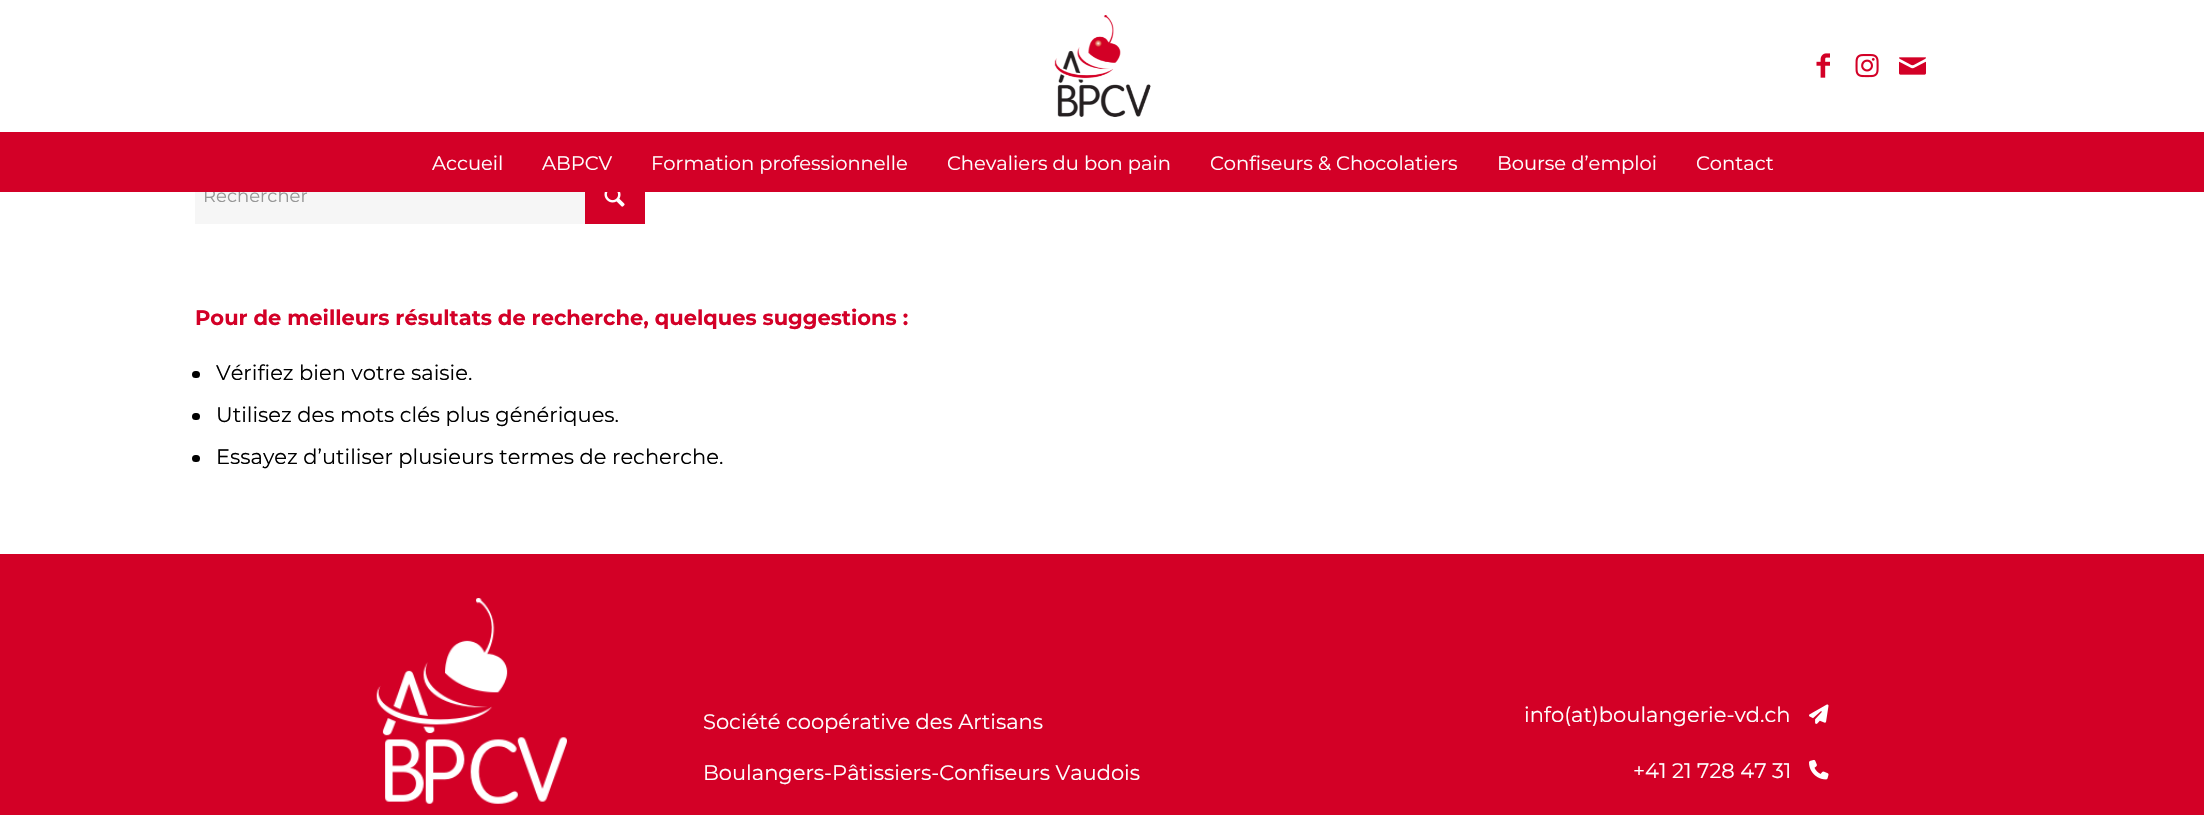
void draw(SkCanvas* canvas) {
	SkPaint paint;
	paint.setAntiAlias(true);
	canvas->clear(0xffffffff);
	canvas->drawImageRect(SkImages::DeferredFromEncodedData(SkData::MakeFromFileName("img1.png")), SkRect::MakeXYWH(1054, 15, 97, 102), SkSamplingOptions());
	canvas->drawImageRect(SkImages::DeferredFromEncodedData(SkData::MakeFromFileName("img2.png")), SkRect::MakeXYWH(1816, 53, 14, 25), SkSamplingOptions());
	canvas->drawImageRect(SkImages::DeferredFromEncodedData(SkData::MakeFromFileName("img3.png")), SkRect::MakeXYWH(1855, 54, 24, 24), SkSamplingOptions());
	canvas->drawImageRect(SkImages::DeferredFromEncodedData(SkData::MakeFromFileName("img4.png")), SkRect::MakeXYWH(1899, 57, 27, 18), SkSamplingOptions());
	paint.setColor(0xfff6f6f6);
	canvas->drawRect(SkRect::MakeXYWH(195, 192, 390, 32), paint);
	SkFont f1(fontMgr->matchFamilyStyle("Montserrat", SkFontStyle::Normal()), 18);
	f1.setSubpixel(true);
	paint.setColor(0xff969696);
	canvas->drawString("Rechercher", 203, 202, f1, paint);
	paint.setColor(0xffd30027);
	canvas->drawRect(SkRect::MakeXYWH(0, 132, 2204, 60), paint);
	SkFont f2(fontMgr->matchFamilyStyle("Montserrat", SkFontStyle::Normal()), 19.5);
	f2.setSubpixel(true);
	paint.setColor(0xffffffff);
	canvas->drawString("Accueil", 432, 170, f2, paint);
	canvas->drawString("ABPCV", 542, 170, f2, paint);
	canvas->drawString("Formation professionnelle", 651, 170, f2, paint);
	canvas->drawString("Chevaliers du bon pain", 947, 170, f2, paint);
	canvas->drawString("Confiseurs & Chocolatiers", 1210, 170, f2, paint);
	canvas->drawString("Bourse d’emploi", 1497, 170, f2, paint);
	canvas->drawString("Contact", 1696, 170, f2, paint);
	paint.setColor(0xffd30027);
	canvas->drawRect(SkRect::MakeXYWH(585, 192, 60, 32), paint);
	canvas->drawImageRect(SkImages::DeferredFromEncodedData(SkData::MakeFromFileName("img5.png")), SkRect::MakeXYWH(604, 192, 21, 15), SkSamplingOptions());
	SkFont f3(fontMgr->matchFamilyStyle("Montserrat", SkFontStyle::Bold()), 21);
	f3.setSubpixel(true);
	canvas->drawString("Pour de meilleurs résultats de recherche, quelques suggestions :", 195, 325, f3, paint);
	paint.setColor(0xff000000);
	canvas->drawRoundRect(SkRect::MakeXYWH(192, 371, 8, 7), 3.5, 3.5, paint);
	SkFont f4(fontMgr->matchFamilyStyle("Montserrat", SkFontStyle::Normal()), 21);
	f4.setSubpixel(true);
	canvas->drawString("Vérifiez bien votre saisie.", 216, 380, f4, paint);
	canvas->drawRoundRect(SkRect::MakeXYWH(192, 413, 8, 7), 3.5, 3.5, paint);
	canvas->drawString("Utilisez des mots clés plus génériques.", 216, 422, f4, paint);
	canvas->drawRoundRect(SkRect::MakeXYWH(192, 455, 8, 7), 3.5, 3.5, paint);
	canvas->drawString("Essayez d’utiliser plusieurs termes de recherche.", 216, 464, f4, paint);
	paint.setColor(0xffd30026);
	canvas->drawRect(SkRect::MakeXYWH(0, 554, 2204, 261), paint);
	canvas->drawImageRect(SkImages::DeferredFromEncodedData(SkData::MakeFromFileName("img6.png")), SkRect::MakeXYWH(376, 598, 191, 206), SkSamplingOptions());
	paint.setColor(0xffffffff);
	canvas->drawString("Société coopérative des Artisans", 703, 729, f4, paint);
	canvas->drawString("Boulangers-Pâtissiers-Confiseurs Vaudois", 703, 780, f4, paint);
	canvas->drawString("info(at)boulangerie-vd.ch", 1524, 722, f4, paint);
	canvas->drawImageRect(SkImages::DeferredFromEncodedData(SkData::MakeFromFileName("img7.png")), SkRect::MakeXYWH(1809, 704, 20, 20), SkSamplingOptions());
	canvas->drawString("+41 21 728 47 31", 1633, 778, f4, paint);
	canvas->drawImageRect(SkImages::DeferredFromEncodedData(SkData::MakeFromFileName("img8.png")), SkRect::MakeXYWH(1809, 759, 20, 21), SkSamplingOptions());
}
